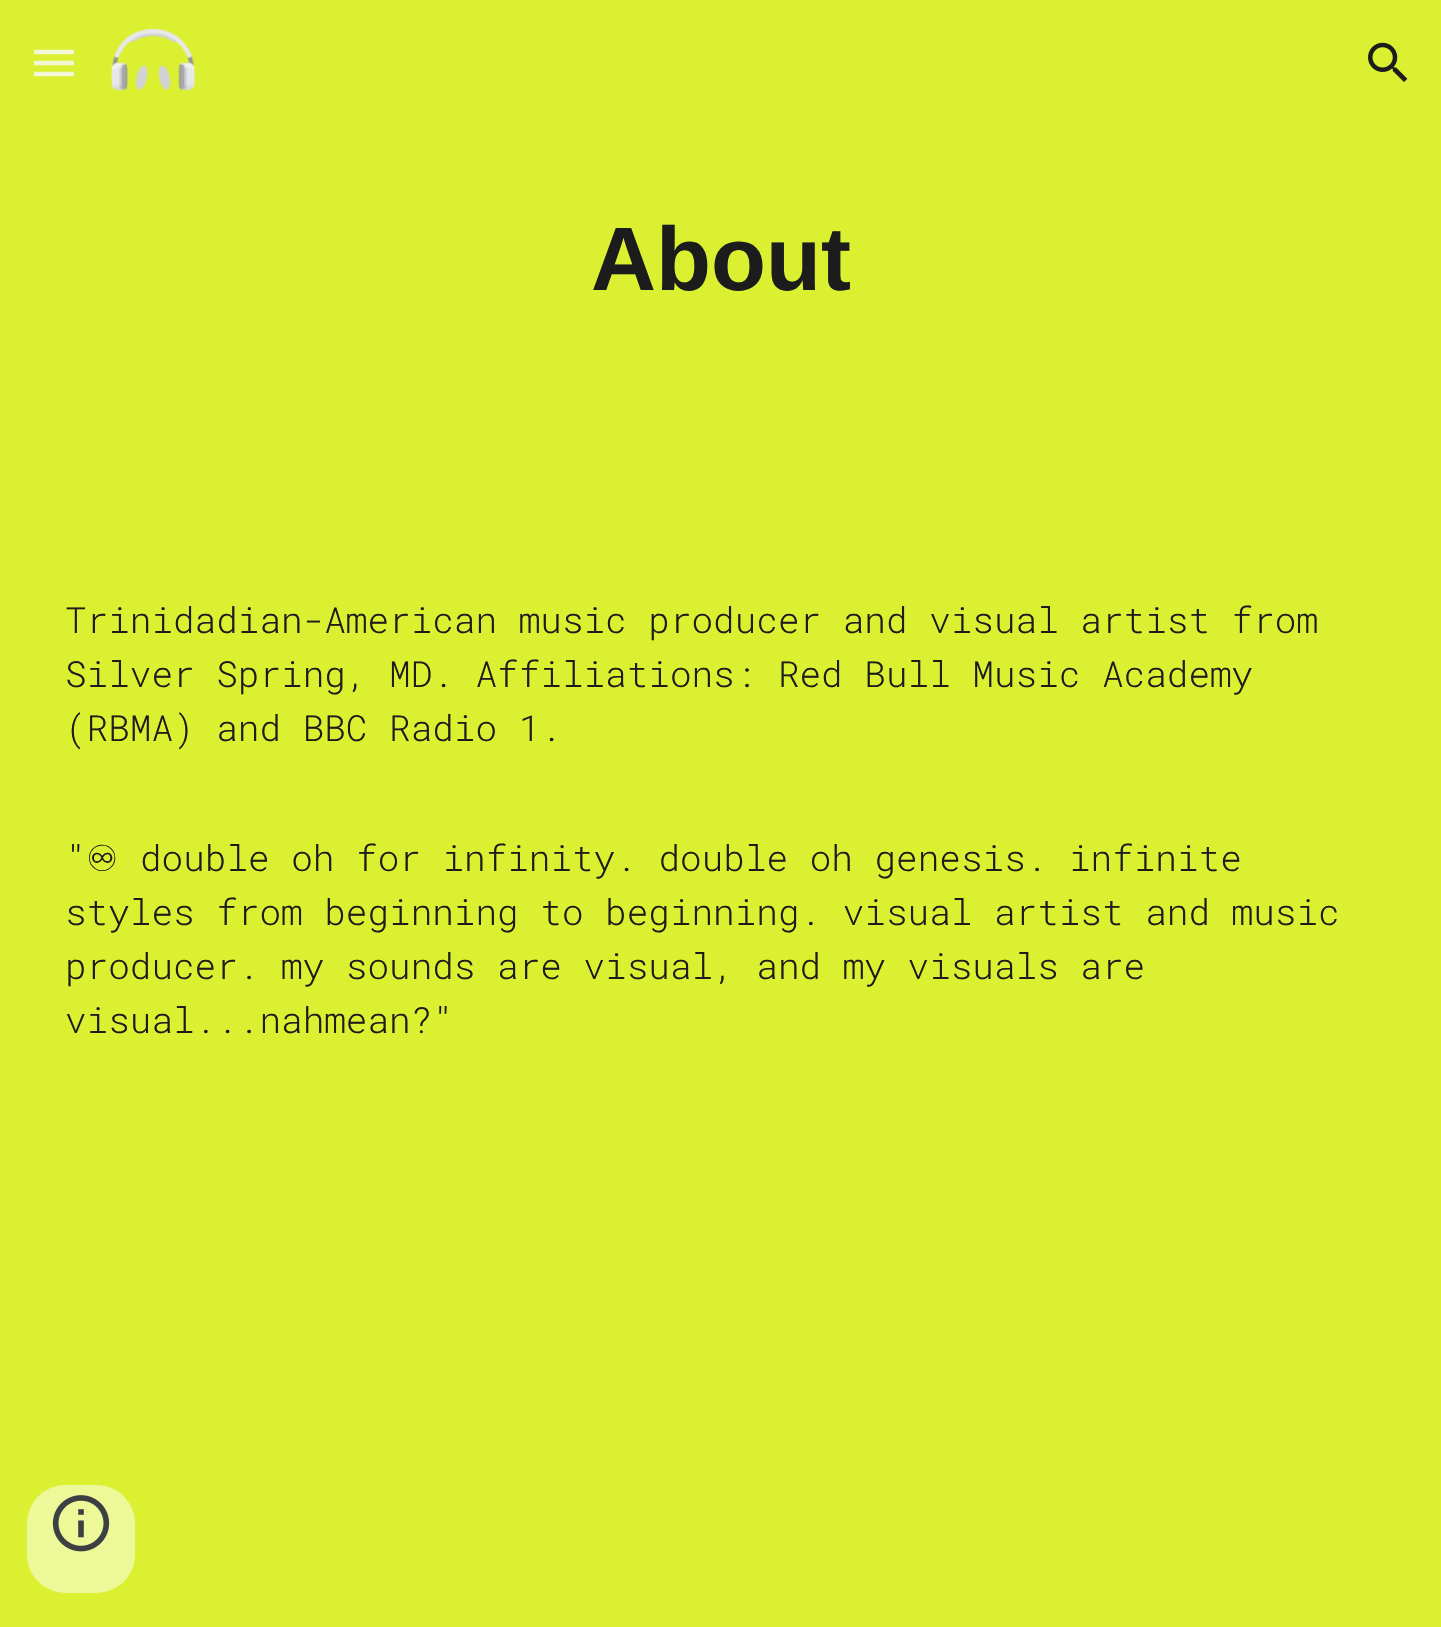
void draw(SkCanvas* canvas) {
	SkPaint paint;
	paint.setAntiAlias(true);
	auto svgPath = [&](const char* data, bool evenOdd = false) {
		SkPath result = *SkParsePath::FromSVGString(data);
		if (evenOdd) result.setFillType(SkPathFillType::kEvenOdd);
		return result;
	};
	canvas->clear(0xffdbf030);
	paint.setStroke(true);
	paint.setStrokeWidth(4.5);
	paint.setColor(0xfff4f7d5);
	canvas->drawPath(svgPath("M34 52H74M34 63H74M34 74H74"), paint);
	canvas->drawImageRect(SkImages::DeferredFromEncodedData(SkData::MakeFromFileName("img1.png")), SkRect::MakeXYWH(111, 28, 85, 63), SkSamplingOptions());
	canvas->drawImageRect(SkImages::DeferredFromEncodedData(SkData::MakeFromFileName("img2.png")), SkRect::MakeXYWH(1368, 42, 40, 40), SkSamplingOptions());
	SkFont f1(fontMgr->matchFamilyStyle("Liberation Sans", SkFontStyle::Bold()), 90);
	f1.setSubpixel(true);
	paint.setStroke(false);
	paint.setColor(0xff1c1c1c);
	canvas->drawString("About", 591, 290, f1, paint);
	SkFont f2(fontMgr->matchFamilyStyle("Roboto Mono", SkFontStyle(300, SkFontStyle::kNormal_Width, SkFontStyle::kUpright_Slant)), 36);
	f2.setSubpixel(true);
	canvas->drawString("Trinidadian-American music producer and visual artist from", 65, 633, f2, paint);
	canvas->drawString("Silver Spring, MD. Affiliations: Red Bull Music Academy", 65, 687, f2, paint);
	canvas->drawString("(RBMA) and BBC Radio 1.", 65, 741, f2, paint);
	canvas->drawString("\"", 65, 871, f2, paint);
	SkFont f3(fontMgr->matchFamilyStyle("DejaVu Sans", SkFontStyle::Normal()), 36);
	f3.setSubpixel(true);
	canvas->drawString("♾", 86, 871, f3, paint);
	canvas->drawString("double oh for infinity. double oh genesis. infinite", 140, 871, f2, paint);
	canvas->drawString("styles from beginning to beginning. visual artist and music", 65, 925, f2, paint);
	canvas->drawString("producer. my sounds are visual, and my visuals are", 65, 979, f2, paint);
	canvas->drawString("visual...nahmean?\"", 65, 1033, f2, paint);
	paint.setColor(0xffedf898);
	canvas->drawRoundRect(SkRect::MakeXYWH(27, 1485, 108, 108), 38, 38, paint);
	canvas->drawImageRect(SkImages::DeferredFromEncodedData(SkData::MakeFromFileName("img3.png")), SkRect::MakeXYWH(52, 1495, 58, 57), SkSamplingOptions());
}
